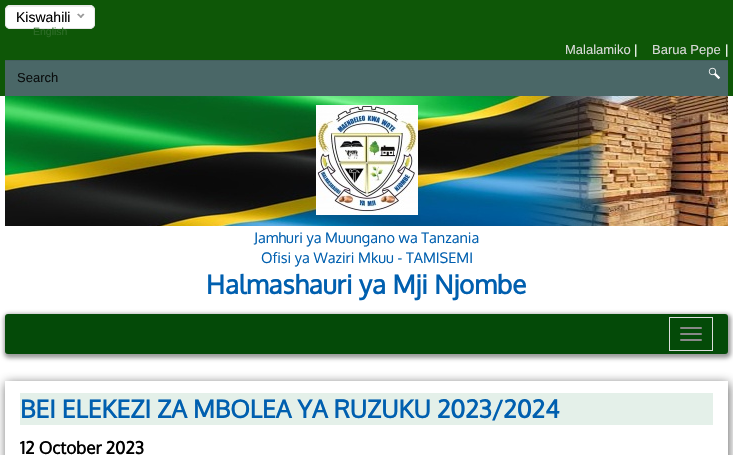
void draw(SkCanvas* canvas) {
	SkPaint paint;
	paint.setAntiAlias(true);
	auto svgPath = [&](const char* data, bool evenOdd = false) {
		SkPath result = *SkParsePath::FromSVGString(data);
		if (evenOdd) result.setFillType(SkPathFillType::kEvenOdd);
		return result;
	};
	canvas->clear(0xffffffff);
	paint.setColor(0xff0e5707);
	canvas->drawRect(SkRect::MakeXYWH(0, 0, 733, 96), paint);
	paint.setColor(0xffffffff);
	canvas->drawRoundRect(SkRect::MakeXYWH(5, 5, 90, 24), 5, 5, paint);
	paint.setColor(0xffececec);
	canvas->drawPath(svgPath("M10 7H90C92 7 94 9 94 11C94 3 81 6 77 6H23C19 6 6 3 6 11C6 9 8 7 10 7Z"), paint);
	paint.setStroke(true);
	paint.setStrokeWidth(1);
	paint.setColor(0xffe8e8e8);
	canvas->drawRoundRect(SkRect::MakeXYWH(5.5, 5.5, 89, 23), 4.5, 4.5, paint);
	SkFont f1(fontMgr->matchFamilyStyle("Liberation Sans", SkFontStyle::Normal()), 14);
	f1.setSubpixel(true);
	paint.setStroke(false);
	paint.setColor(0xff000000);
	canvas->drawString("Kiswahili", 16, 22, f1, paint);
	paint.setColor(0xff999999);
	canvas->drawPath(svgPath("M83 13.5L84.5 14.5L81 18L79.5 17Z"), paint);
	canvas->drawPath(svgPath("M78.5 13.5L82 17L81 18L77 14.5Z"), paint);
	SkFont f2(fontMgr->matchFamilyStyle("Liberation Sans", SkFontStyle::Normal()), 10.5);
	f2.setSubpixel(true);
	paint.setColor(0xff2d6c27);
	canvas->drawString("English", 33, 35, f2, paint);
	SkFont f3(fontMgr->matchFamilyStyle("Liberation Sans", SkFontStyle::Normal()), 13);
	f3.setSubpixel(true);
	paint.setColor(0xffd9d9d9);
	canvas->drawString("Malalamiko", 565, 54, f3, paint);
	paint.setColor(0xffffffff);
	canvas->drawString("|", 634, 54, f3, paint);
	paint.setColor(0xffd9d9d9);
	canvas->drawString("Barua Pepe", 652, 54, f3, paint);
	paint.setColor(0xffffffff);
	canvas->drawString("|", 725, 54, f3, paint);
	paint.setColor(0xff4a6767);
	canvas->drawRect(SkRect::MakeXYWH(5, 61, 723, 35), paint);
	paint.setColor(0xff445f5f);
	canvas->drawRect(SkRect::MakeXYWH(5, 60, 723, 1), paint);
	paint.setColor(0xff0a0e0e);
	canvas->drawString("Search", 17, 82, f3, paint);
	canvas->drawImageRect(SkImages::DeferredFromEncodedData(SkData::MakeFromFileName("img1.png")), SkRect::MakeXYWH(708, 67, 13, 13), SkSamplingOptions());
	canvas->drawImageRect(SkImages::DeferredFromEncodedData(SkData::MakeFromFileName("img2.png")), SkRect::MakeXYWH(5, 96, 723, 130), SkSamplingOptions());
	canvas->drawImageRect(SkImages::DeferredFromEncodedData(SkData::MakeFromFileName("img3.png")), SkRect::MakeXYWH(316, 105, 102, 110), SkSamplingOptions());
	SkFont f4(fontMgr->matchFamilyStyle("Oxygen", SkFontStyle::Normal()), 14.5);
	f4.setSubpixel(true);
	paint.setColor(0xff005faf);
	canvas->drawString("Jamhuri ya Muungano wa Tanzania", 254, 243, f4, paint);
	canvas->drawString("Ofisi ya Waziri Mkuu - TAMISEMI", 261, 263, f4, paint);
	SkFont f5(fontMgr->matchFamilyStyle("Oxygen", SkFontStyle::Bold()), 26);
	f5.setSubpixel(true);
	canvas->drawString("Halmashauri ya Mji Njombe", 206, 294, f5, paint);
	paint.setColor(0xff999999);
	paint.setMaskFilter(SkMaskFilter::MakeBlur(kNormal_SkBlurStyle, 2));
	canvas->drawRoundRect(SkRect::MakeXYWH(4, 314, 727, 44), 5, 5, paint);
	paint.setMaskFilter(nullptr);
	paint.setColor(0xff044a08);
	canvas->drawRoundRect(SkRect::MakeXYWH(5, 314, 723, 40), 3, 3, paint);
	paint.setStroke(true);
	paint.setColor(0xffdddddd);
	canvas->drawRect(SkRect::MakeXYWH(669.5, 317.5, 43, 33), paint);
	paint.setStroke(false);
	paint.setColor(0xff888888);
	canvas->drawRoundRect(SkRect::MakeXYWH(680, 327, 22, 2), 1, 1, paint);
	canvas->drawRoundRect(SkRect::MakeXYWH(680, 333, 22, 2), 1, 1, paint);
	canvas->drawRoundRect(SkRect::MakeXYWH(680, 339, 22, 2), 1, 1, paint);
	canvas->save();
	canvas->clipPath(svgPath("M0 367H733V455H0ZM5 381H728V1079H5Z", true), true);
	paint.setColor(0xbf323232);
	paint.setMaskFilter(SkMaskFilter::MakeBlur(kNormal_SkBlurStyle, 5));
	canvas->drawRect(SkRect::MakeXYWH(6, 383, 723, 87), paint);
	paint.setMaskFilter(nullptr);
	canvas->restore();
	paint.setColor(0xffe4f0e9);
	canvas->drawRect(SkRect::MakeXYWH(20, 393, 693, 32), paint);
	SkFont f6(fontMgr->matchFamilyStyle("Oxygen", SkFontStyle::Bold()), 24.6);
	f6.setSubpixel(true);
	paint.setColor(0xff005faf);
	canvas->drawString("BEI ELEKEZI ZA MBOLEA YA RUZUKU 2023/2024", 20, 418, f6, paint);
	SkFont f7(fontMgr->matchFamilyStyle("Oxygen", SkFontStyle::Bold()), 17);
	f7.setSubpixel(true);
	paint.setColor(0xff000000);
	canvas->drawString("12 October 2023", 20, 454, f7, paint);
}
